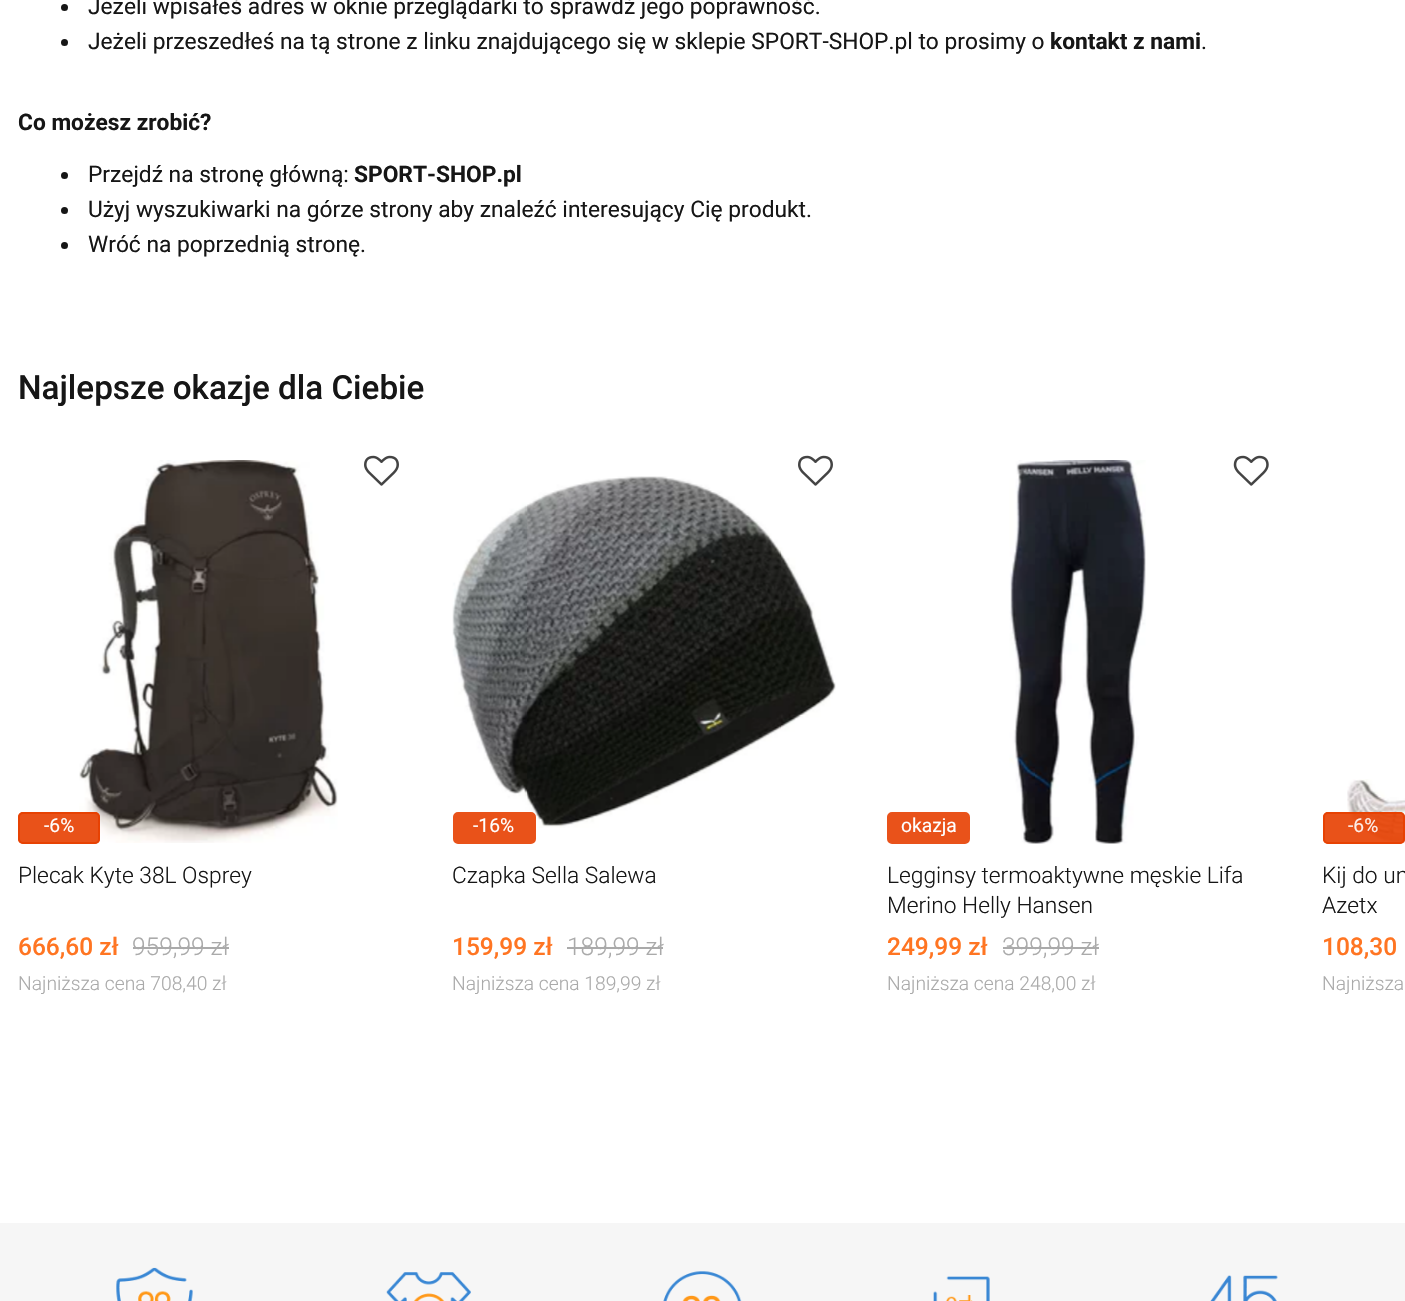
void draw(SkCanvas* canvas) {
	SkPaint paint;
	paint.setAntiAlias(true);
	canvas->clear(0xffffffff);
	paint.setColor(0xff161616);
	canvas->drawCircle(64.5, 7.5, 3.5, paint);
	SkFont f1(fontMgr->matchFamilyStyle("Roboto", SkFontStyle::Normal()), 22.75);
	f1.setSubpixel(true);
	canvas->drawString("Jeżeli wpisałeś adres w oknie przeglądarki to sprawdź jego poprawność.", 88, 14, f1, paint);
	canvas->drawCircle(64.5, 42.5, 3.5, paint);
	canvas->drawString("Jeżeli przeszedłeś na tą strone z linku znajdującego się w sklepie SPORT-SHOP.pl to prosimy o", 88, 49, f1, paint);
	SkFont f2(fontMgr->matchFamilyStyle("Roboto", SkFontStyle::Bold()), 22.75);
	f2.setSubpixel(true);
	canvas->drawString("kontakt z nami", 1050, 49, f2, paint);
	canvas->drawString(".", 1201, 49, f1, paint);
	canvas->drawString("Co możesz zrobić?", 18, 130, f2, paint);
	canvas->drawCircle(64.5, 175.5, 3.5, paint);
	canvas->drawString("Przejdź na stronę główną:", 88, 182, f1, paint);
	canvas->drawString("SPORT-SHOP.pl", 354, 182, f2, paint);
	canvas->drawCircle(64.5, 210.5, 3.5, paint);
	canvas->drawString("Użyj wyszukiwarki na górze strony aby znaleźć interesujący Cię produkt.", 88, 217, f1, paint);
	canvas->drawCircle(64.5, 245.5, 3.5, paint);
	canvas->drawString("Wróć na poprzednią stronę.", 88, 252, f1, paint);
	SkFont f3(fontMgr->matchFamilyStyle("Roboto", SkFontStyle(500, SkFontStyle::kNormal_Width, SkFontStyle::kUpright_Slant)), 33.25);
	f3.setSubpixel(true);
	canvas->drawString("Najlepsze okazje dla Ciebie", 18, 399, f3, paint);
	canvas->drawImageRect(SkImages::DeferredFromEncodedData(SkData::MakeFromFileName("img1.png")), SkRect::MakeXYWH(364, 455, 35, 31), SkSamplingOptions());
	canvas->drawImageRect(SkImages::DeferredFromEncodedData(SkData::MakeFromFileName("img2.png")), SkRect::MakeXYWH(79, 460, 259, 383), SkSamplingOptions());
	paint.setColor(0xe6e73f00);
	canvas->drawRoundRect(SkRect::MakeXYWH(18, 812, 82, 32), 5, 5, paint);
	paint.setStroke(true);
	paint.setStrokeWidth(2);
	canvas->drawRoundRect(SkRect::MakeXYWH(19, 813, 80, 30), 4, 4, paint);
	SkFont f4(fontMgr->matchFamilyStyle("Roboto", SkFontStyle::Normal()), 19.25);
	f4.setSubpixel(true);
	paint.setStroke(false);
	paint.setColor(0xffffffff);
	canvas->drawString("-6%", 44, 832, f4, paint);
	SkFont f5(fontMgr->matchFamilyStyle("Roboto", SkFontStyle(300, SkFontStyle::kNormal_Width, SkFontStyle::kUpright_Slant)), 22.75);
	f5.setSubpixel(true);
	paint.setColor(0xff161616);
	canvas->drawString("Plecak Kyte 38L Osprey", 18, 883, f5, paint);
	SkFont f6(fontMgr->matchFamilyStyle("Roboto", SkFontStyle(500, SkFontStyle::kNormal_Width, SkFontStyle::kUpright_Slant)), 24.5);
	f6.setSubpixel(true);
	paint.setColor(0xffff7522);
	canvas->drawString("666,60 zł", 18, 955, f6, paint);
	SkFont f7(fontMgr->matchFamilyStyle("Roboto", SkFontStyle(300, SkFontStyle::kNormal_Width, SkFontStyle::kUpright_Slant)), 24.5);
	f7.setSubpixel(true);
	paint.setColor(0xffaaaaaa);
	canvas->drawString("959,99 zł", 132, 955, f7, paint);
	canvas->drawRect(SkRect::MakeXYWH(133, 947, 96, 2), paint);
	SkFont f8(fontMgr->matchFamilyStyle("Roboto", SkFontStyle(300, SkFontStyle::kNormal_Width, SkFontStyle::kUpright_Slant)), 19.25);
	f8.setSubpixel(true);
	canvas->drawString("Najniższa cena 708,40 zł", 18, 990, f8, paint);
	canvas->drawImageRect(SkImages::DeferredFromEncodedData(SkData::MakeFromFileName("img3.png")), SkRect::MakeXYWH(452, 476, 384, 352), SkSamplingOptions());
	canvas->drawImageRect(SkImages::DeferredFromEncodedData(SkData::MakeFromFileName("img1.png")), SkRect::MakeXYWH(798, 455, 35, 31), SkSamplingOptions());
	paint.setColor(0xffe95219);
	canvas->drawRoundRect(SkRect::MakeXYWH(454, 813, 81, 30), 4, 4, paint);
	paint.setStroke(true);
	canvas->drawRoundRect(SkRect::MakeXYWH(454, 813, 81, 30), 4, 4, paint);
	paint.setStroke(false);
	paint.setColor(0xffffffff);
	canvas->drawString("-16%", 473, 832, f4, paint);
	paint.setColor(0xff161616);
	canvas->drawString("Czapka Sella Salewa", 452, 883, f5, paint);
	paint.setColor(0xffff7522);
	canvas->drawString("159,99 zł", 452, 955, f6, paint);
	paint.setColor(0xffaaaaaa);
	canvas->drawString("189,99 zł", 567, 955, f7, paint);
	canvas->drawRect(SkRect::MakeXYWH(567, 947, 96, 2), paint);
	canvas->drawString("Najniższa cena 189,99 zł", 452, 990, f8, paint);
	canvas->drawImageRect(SkImages::DeferredFromEncodedData(SkData::MakeFromFileName("img4.png")), SkRect::MakeXYWH(1233, 455, 36, 31), SkSamplingOptions());
	paint.setColor(0xffe9521a);
	canvas->drawRoundRect(SkRect::MakeXYWH(888, 813, 81, 30), 4, 4, paint);
	paint.setStroke(true);
	canvas->drawRoundRect(SkRect::MakeXYWH(888, 813, 81, 30), 4, 4, paint);
	paint.setStroke(false);
	paint.setColor(0xffffffff);
	canvas->drawString("okazja", 901, 832, f4, paint);
	canvas->drawImageRect(SkImages::DeferredFromEncodedData(SkData::MakeFromFileName("img5.png")), SkRect::MakeXYWH(1009, 460, 137, 384), SkSamplingOptions());
	paint.setColor(0xff161616);
	canvas->drawString("Legginsy termoaktywne męskie Lifa", 887, 883, f5, paint);
	canvas->drawString("Merino Helly Hansen", 887, 913, f5, paint);
	paint.setColor(0xffff7522);
	canvas->drawString("249,99 zł", 887, 955, f6, paint);
	paint.setColor(0xffaaaaaa);
	canvas->drawString("399,99 zł", 1002, 955, f7, paint);
	canvas->drawRect(SkRect::MakeXYWH(1003, 947, 96, 2), paint);
	canvas->drawString("Najniższa cena 248,00 zł", 887, 990, f8, paint);
	canvas->drawImageRect(SkImages::DeferredFromEncodedData(SkData::MakeFromFileName("img6.png")), SkRect::MakeXYWH(1347, 779, 58, 65), SkSamplingOptions());
	paint.setColor(0xe6e73f00);
	canvas->drawRoundRect(SkRect::MakeXYWH(1323, 812, 82, 32), 5, 5, paint);
	paint.setStroke(true);
	canvas->drawRoundRect(SkRect::MakeXYWH(1324, 813, 80, 30), 4, 4, paint);
	paint.setStroke(false);
	paint.setColor(0xfffdede8);
	canvas->drawString("-6%", 1348, 832, f4, paint);
	paint.setColor(0xff161616);
	canvas->drawString("Kij do un", 1322, 883, f5, paint);
	canvas->drawString("Azetx", 1322, 913, f5, paint);
	paint.setColor(0xffff7522);
	canvas->drawString("108,30", 1322, 955, f6, paint);
	paint.setColor(0xffaaaaaa);
	canvas->drawString("Najniższa", 1322, 990, f8, paint);
	paint.setColor(0xfff6f6f6);
	canvas->drawRect(SkRect::MakeXYWH(0, 1223, 1405, 78), paint);
	canvas->drawImageRect(SkImages::DeferredFromEncodedData(SkData::MakeFromFileName("img7.png")), SkRect::MakeXYWH(116, 1267, 77, 34), SkSamplingOptions());
	canvas->drawImageRect(SkImages::DeferredFromEncodedData(SkData::MakeFromFileName("img8.png")), SkRect::MakeXYWH(386, 1272, 85, 29), SkSamplingOptions());
	canvas->drawImageRect(SkImages::DeferredFromEncodedData(SkData::MakeFromFileName("img9.png")), SkRect::MakeXYWH(663, 1271, 79, 30), SkSamplingOptions());
	canvas->drawImageRect(SkImages::DeferredFromEncodedData(SkData::MakeFromFileName("img10.png")), SkRect::MakeXYWH(933, 1276, 57, 25), SkSamplingOptions());
	canvas->drawImageRect(SkImages::DeferredFromEncodedData(SkData::MakeFromFileName("img11.png")), SkRect::MakeXYWH(1210, 1275, 68, 26), SkSamplingOptions());
}
